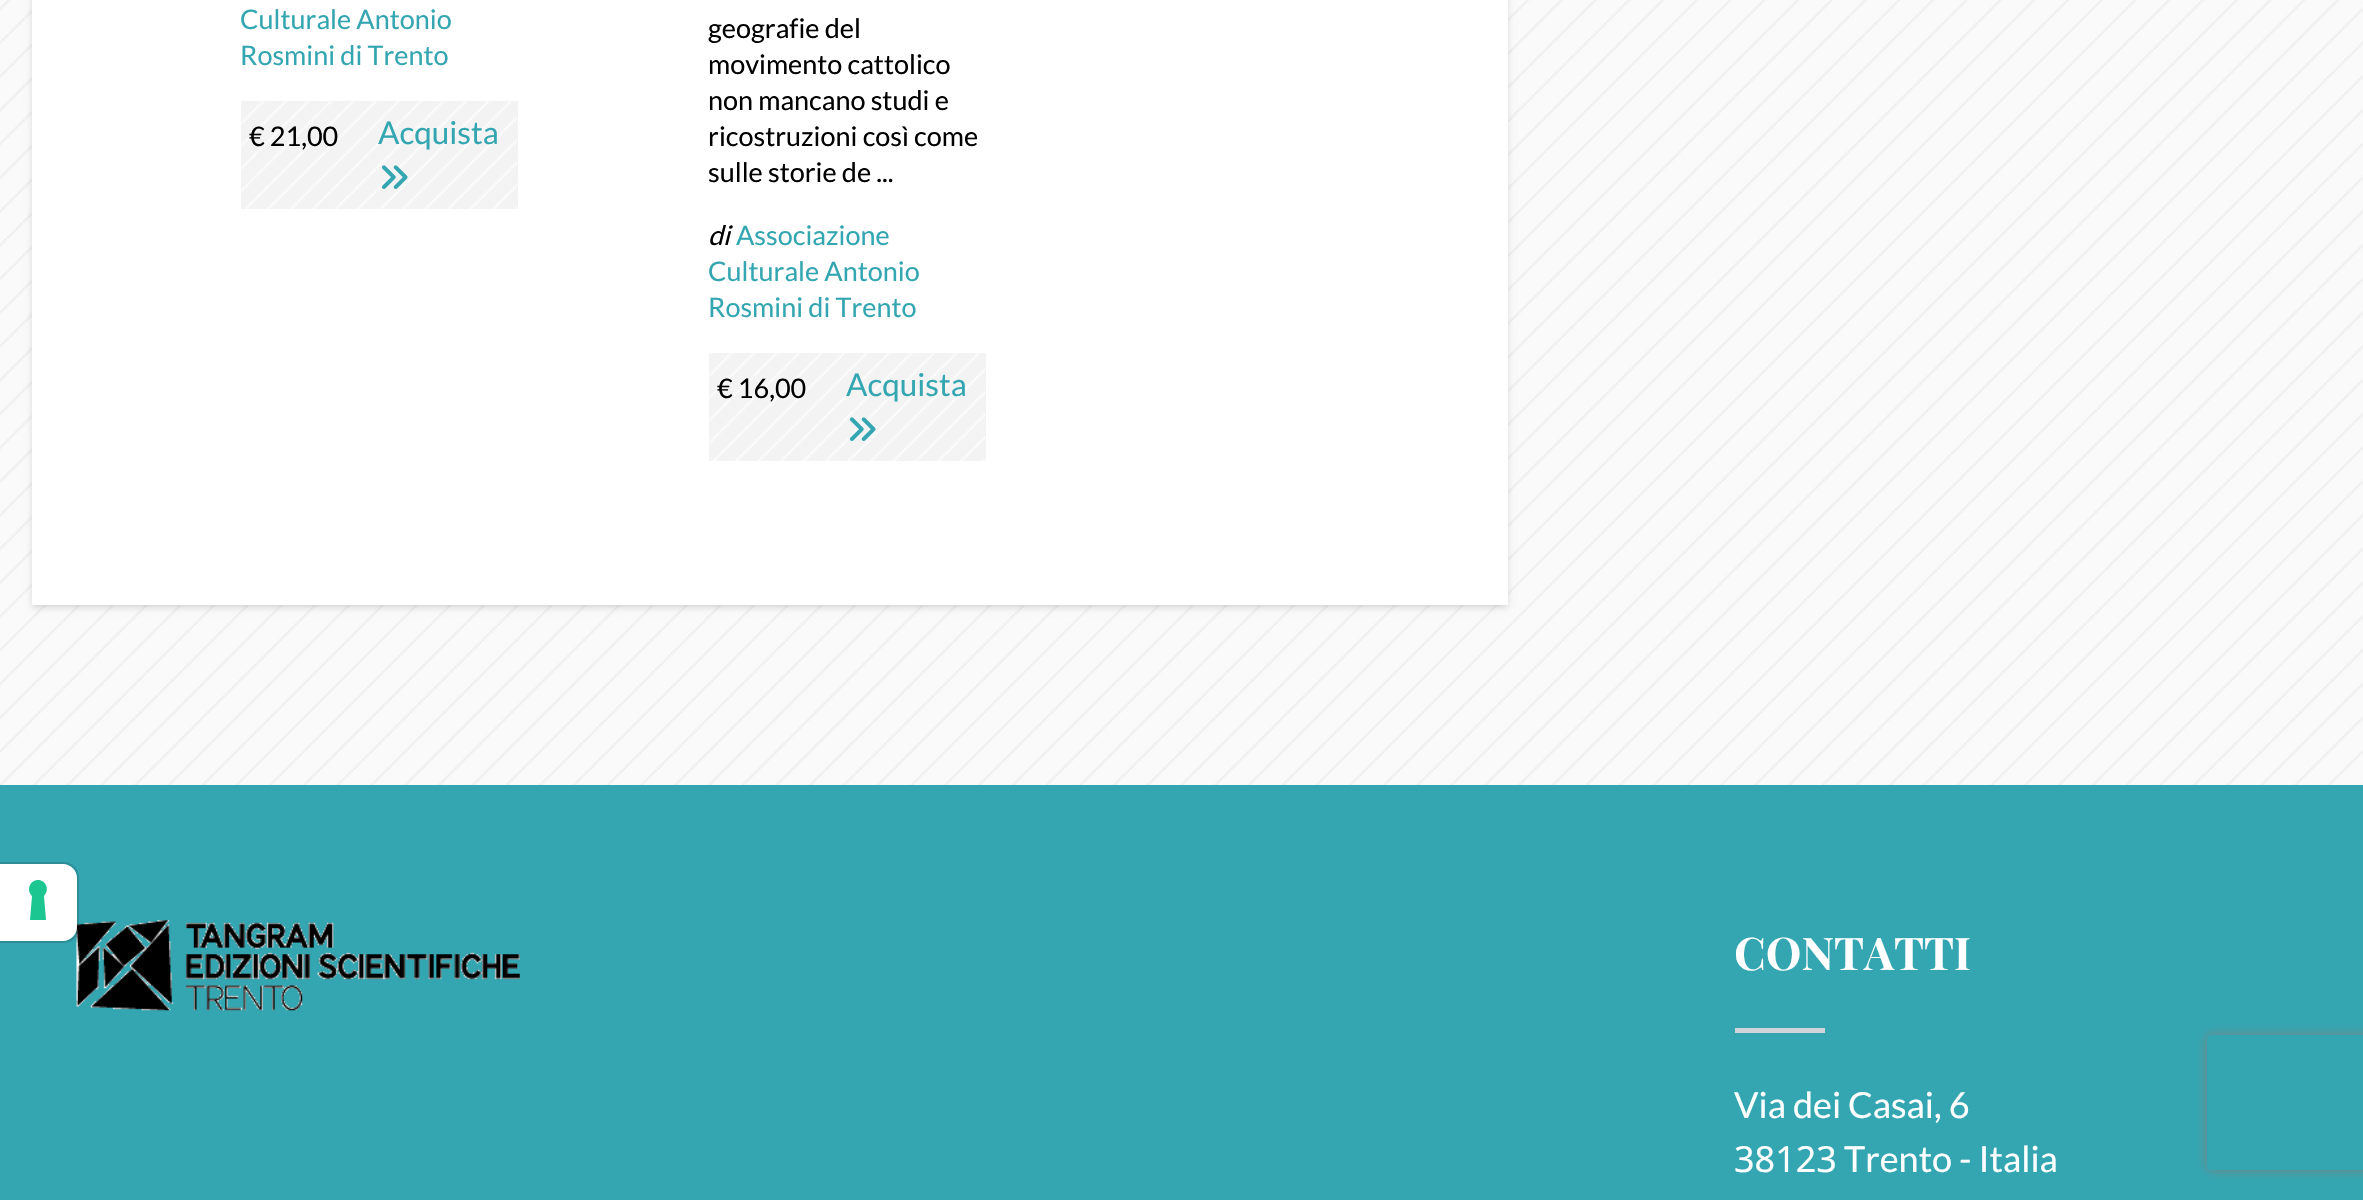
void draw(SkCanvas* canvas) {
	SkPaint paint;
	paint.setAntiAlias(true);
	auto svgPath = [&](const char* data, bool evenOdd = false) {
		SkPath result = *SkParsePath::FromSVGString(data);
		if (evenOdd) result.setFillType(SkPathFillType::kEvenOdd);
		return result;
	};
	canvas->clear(0xfffafafa);
	canvas->drawImageRect(SkImages::DeferredFromEncodedData(SkData::MakeFromFileName("img1.png")), SkRect::MakeXYWH(0, 0, 2363, 785), SkSamplingOptions());
	paint.setColor(0xff33a6b2);
	canvas->drawRect(SkRect::MakeXYWH(0, 785, 2363, 415), paint);
	canvas->drawImageRect(SkImages::DeferredFromEncodedData(SkData::MakeFromFileName("img5.png")), SkRect::MakeXYWH(76, 920, 444, 91), SkSamplingOptions());
	paint.setStroke(true);
	paint.setStrokeWidth(2);
	paint.setColor(0x26000000);
	canvas->drawPath(svgPath("M-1 863H63C71.5 863 78 869.5 78 878V927C78 935.5 71.5 942 63 942H-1Z"), paint);
	paint.setStroke(false);
	paint.setColor(0xffffffff);
	canvas->drawPath(svgPath("M0 864H63C70.5 864 77 870.5 77 878V927C77 934.5 70.5 941 63 941H0Z"), paint);
	paint.setColor(0xff1cc691);
	canvas->drawPath(svgPath("M38 880C46 880 50 890 44 896L46 920H30L32 896C26 890 30 880 38 880Z", true), paint);
	paint.setColor(0x1a000000);
	paint.setMaskFilter(SkMaskFilter::MakeBlur(kNormal_SkBlurStyle, 2));
	canvas->drawRect(SkRect::MakeXYWH(34, -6, 1471, 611), paint);
	paint.setMaskFilter(nullptr);
	paint.setMaskFilter(SkMaskFilter::MakeBlur(kNormal_SkBlurStyle, 3.5));
	canvas->drawRect(SkRect::MakeXYWH(32, -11, 1476, 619), paint);
	paint.setMaskFilter(nullptr);
	paint.setColor(0xffffffff);
	canvas->drawRect(SkRect::MakeXYWH(32, 0, 1476, 605), paint);
	SkFont f1(fontMgr->matchFamilyStyle("Lato", SkFontStyle::Normal()), 27);
	f1.setSubpixel(true);
	paint.setColor(0xff33a6b2);
	canvas->drawString("Culturale Antonio", 240, 29, f1, paint);
	canvas->drawString("Rosmini di Trento", 240, 65, f1, paint);
	paint.setColor(0xfff3f3f3);
	canvas->drawRect(SkRect::MakeXYWH(241, 101, 277, 108), paint);
	canvas->drawImageRect(SkImages::DeferredFromEncodedData(SkData::MakeFromFileName("img2.png")), SkRect::MakeXYWH(241, 101, 276, 108), SkSamplingOptions());
	paint.setColor(0xff000000);
	canvas->drawString("€ 21,00", 249, 146, f1, paint);
	SkFont f2(fontMgr->matchFamilyStyle("Lato", SkFontStyle::Normal()), 31.5);
	f2.setSubpixel(true);
	paint.setColor(0xff33a6b2);
	canvas->drawString("Acquista", 378, 144, f2, paint);
	canvas->drawImageRect(SkImages::DeferredFromEncodedData(SkData::MakeFromFileName("img3.png")), SkRect::MakeXYWH(381, 165, 27, 24), SkSamplingOptions());
	paint.setColor(0xff000000);
	canvas->drawString("geografie del", 708, 38, f1, paint);
	canvas->drawString("movimento cattolico", 708, 74, f1, paint);
	canvas->drawString("non mancano studi e", 708, 110, f1, paint);
	canvas->drawString("ricostruzioni così come", 708, 146, f1, paint);
	canvas->drawString("sulle storie de ...", 708, 182, f1, paint);
	SkFont f3(fontMgr->matchFamilyStyle("Lato", SkFontStyle::Italic()), 27);
	f3.setSubpixel(true);
	canvas->drawString("di", 708, 245, f3, paint);
	paint.setColor(0xff33a6b2);
	canvas->drawString("Associazione", 736, 245, f1, paint);
	canvas->drawString("Culturale Antonio", 708, 281, f1, paint);
	canvas->drawString("Rosmini di Trento", 708, 317, f1, paint);
	paint.setColor(0xfff3f3f3);
	canvas->drawRect(SkRect::MakeXYWH(709, 353, 277, 108), paint);
	canvas->drawImageRect(SkImages::DeferredFromEncodedData(SkData::MakeFromFileName("img4.png")), SkRect::MakeXYWH(709, 353, 276, 108), SkSamplingOptions());
	paint.setColor(0xff000000);
	canvas->drawString("€ 16,00", 717, 398, f1, paint);
	paint.setColor(0xff33a6b2);
	canvas->drawString("Acquista", 846, 396, f2, paint);
	canvas->drawImageRect(SkImages::DeferredFromEncodedData(SkData::MakeFromFileName("img3.png")), SkRect::MakeXYWH(849, 417, 27, 24), SkSamplingOptions());
	SkFont f4(fontMgr->matchFamilyStyle("Playfair Display", SkFontStyle::Bold()), 45);
	f4.setSubpixel(true);
	paint.setColor(0xffffffff);
	canvas->drawString("CONTATTI", 1734, 970, f4, paint);
	paint.setColor(0xffd1d5db);
	canvas->drawRect(SkRect::MakeXYWH(1735, 1028, 90, 5), paint);
	SkFont f5(fontMgr->matchFamilyStyle("Lato", SkFontStyle::Normal()), 36);
	f5.setSubpixel(true);
	paint.setColor(0xffffffff);
	canvas->drawString("Via dei Casai, 6", 1734, 1118, f5, paint);
	SkFont f6(fontMgr->matchFamilyStyle("Noto Sans", SkFontStyle::Normal()), 36);
	f6.setSubpixel(true);
	canvas->drawString("38123", 1734, 1172, f6, paint);
	canvas->drawString("Trento - Italia", 1844, 1172, f5, paint);
	canvas->save();
	canvas->clipPath(svgPath("M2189 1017H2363V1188H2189ZM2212 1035H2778C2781 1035 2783 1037 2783 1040V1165C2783 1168 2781 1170 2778 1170H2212C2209 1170 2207 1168 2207 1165V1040C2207 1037 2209 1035 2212 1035Z", true), true);
	paint.setColor(0xff808080);
	paint.setMaskFilter(SkMaskFilter::MakeBlur(kNormal_SkBlurStyle, 5.5));
	canvas->drawRoundRect(SkRect::MakeXYWH(2207, 1035, 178, 135), 5, 5, paint);
	paint.setMaskFilter(nullptr);
	canvas->restore();
}
